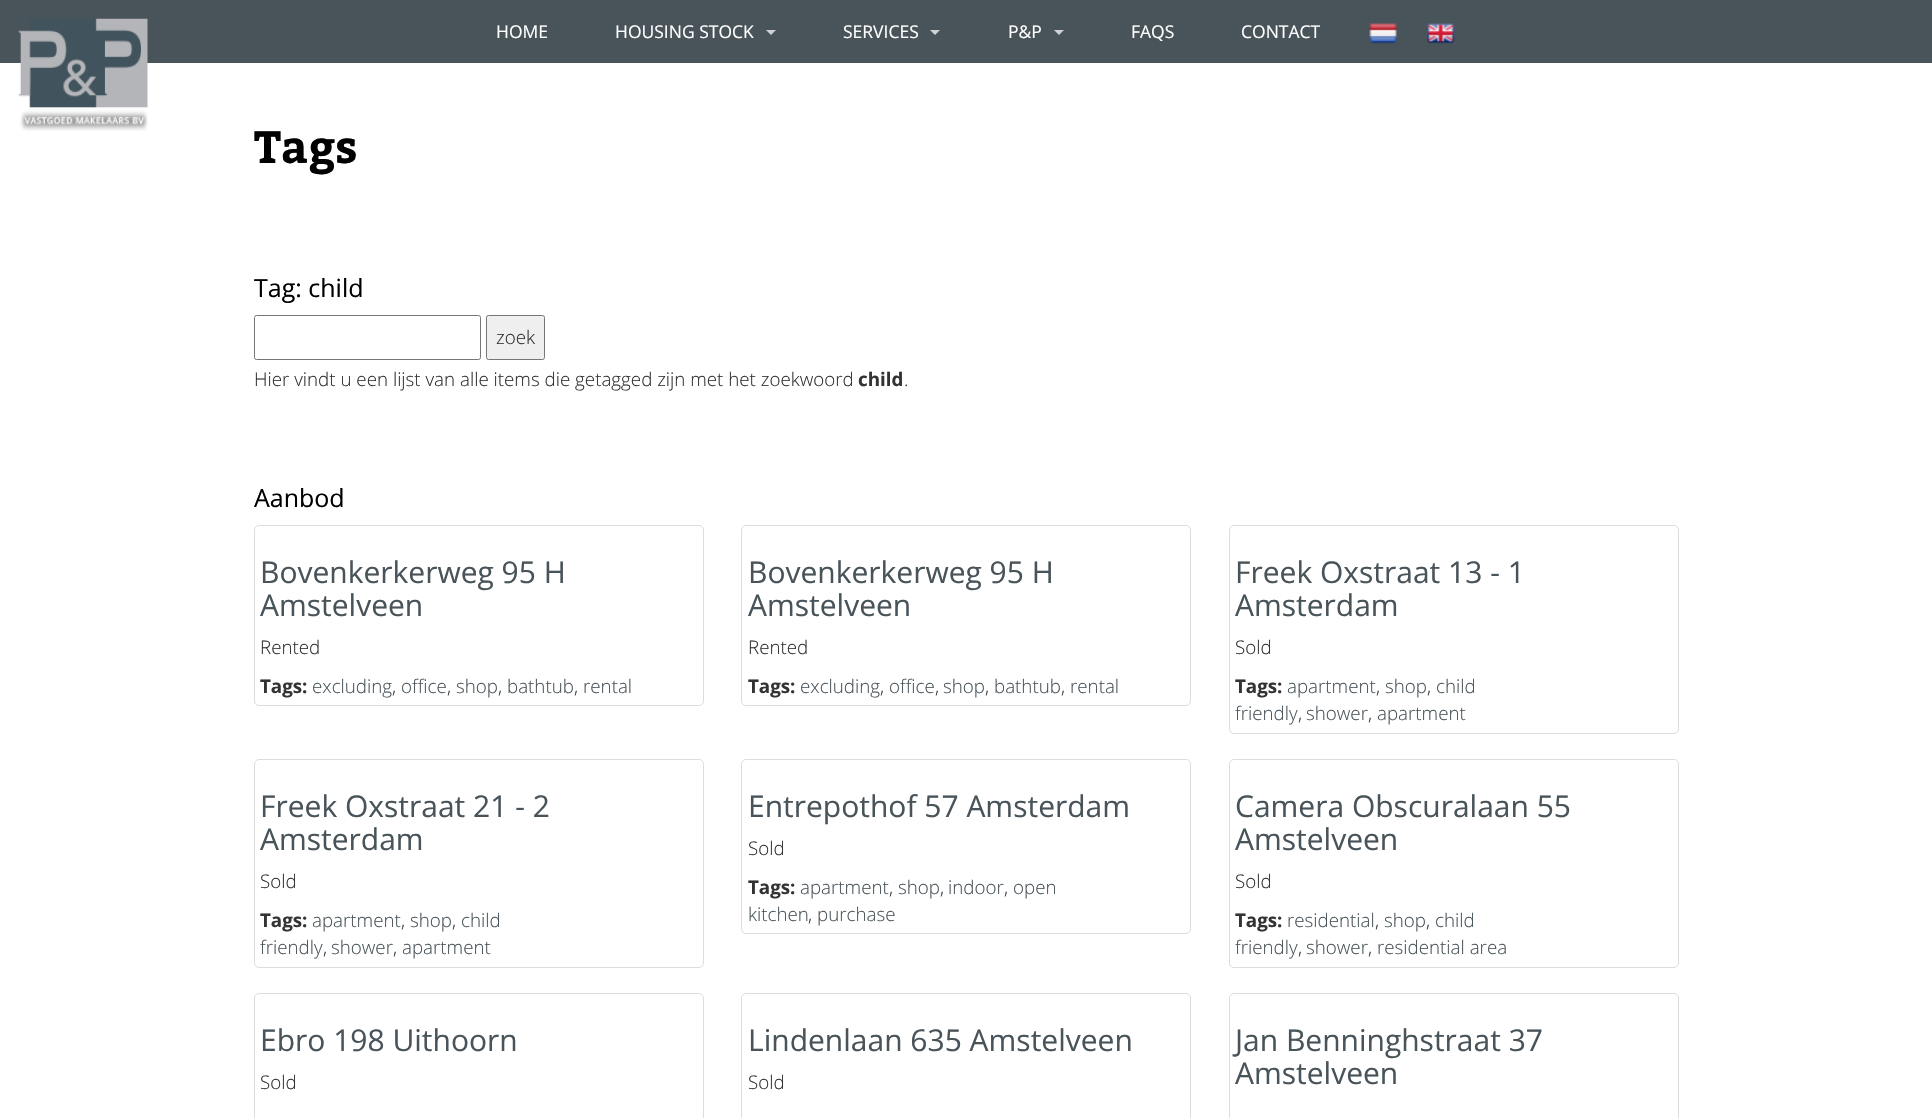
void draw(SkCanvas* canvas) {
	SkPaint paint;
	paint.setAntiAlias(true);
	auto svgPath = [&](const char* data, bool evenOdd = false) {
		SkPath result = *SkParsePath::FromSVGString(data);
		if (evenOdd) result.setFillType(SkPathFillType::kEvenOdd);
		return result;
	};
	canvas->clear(0xff49545a);
	paint.setColor(0xffffffff);
	canvas->drawRect(SkRect::MakeXYWH(0, 63, 1932, 1055), paint);
	canvas->drawImageRect(SkImages::DeferredFromEncodedData(SkData::MakeFromFileName("img1.png")), SkRect::MakeXYWH(18, 18, 130, 113), SkSamplingOptions());
	SkFont f1(fontMgr->matchFamilyStyle("Open Sans", SkFontStyle::Normal()), 17.5);
	f1.setSubpixel(true);
	canvas->drawString("HOME", 496, 38, f1, paint);
	canvas->drawString("HOUSING STOCK", 615, 38, f1, paint);
	paint.setColor(0xffd0d2d3);
	canvas->drawPath(svgPath("M766 30H776L771 35Z"), paint);
	paint.setColor(0xffffffff);
	canvas->drawString("SERVICES", 843, 38, f1, paint);
	paint.setColor(0xffd0d2d3);
	canvas->drawPath(svgPath("M930 30H940L935 35Z"), paint);
	paint.setColor(0xffffffff);
	canvas->drawString("P&P", 1008, 38, f1, paint);
	paint.setColor(0xffd0d2d3);
	canvas->drawPath(svgPath("M1054 30H1064L1059 35Z"), paint);
	paint.setColor(0xffffffff);
	canvas->drawString("FAQS", 1131, 38, f1, paint);
	canvas->drawString("CONTACT", 1241, 38, f1, paint);
	canvas->drawImageRect(SkImages::DeferredFromEncodedData(SkData::MakeFromFileName("img2.png")), SkRect::MakeXYWH(1369, 23, 28, 21), SkSamplingOptions());
	canvas->drawImageRect(SkImages::DeferredFromEncodedData(SkData::MakeFromFileName("img3.png")), SkRect::MakeXYWH(1427, 23, 28, 21), SkSamplingOptions());
	SkFont f2(fontMgr->matchFamilyStyle("Kadwa", SkFontStyle::Bold()), 45);
	f2.setSubpixel(true);
	paint.setColor(0xff000000);
	canvas->drawString("Tags", 254, 163, f2, paint);
	SkFont f3(fontMgr->matchFamilyStyle("Open Sans", SkFontStyle::Normal()), 25);
	f3.setSubpixel(true);
	canvas->drawString("Tag: child", 254, 297, f3, paint);
	paint.setStroke(true);
	paint.setStrokeWidth(1);
	paint.setColor(0xff767676);
	canvas->drawRoundRect(SkRect::MakeXYWH(254.5, 315.5, 226, 44), 2, 2, paint);
	paint.setStroke(false);
	paint.setColor(0xffefefef);
	canvas->drawRoundRect(SkRect::MakeXYWH(486.5, 315.5, 58, 44), 2, 2, paint);
	paint.setStroke(true);
	paint.setColor(0xff767676);
	canvas->drawRoundRect(SkRect::MakeXYWH(486.5, 315.5, 58, 44), 2, 2, paint);
	SkFont f4(fontMgr->matchFamilyStyle("Open Sans", SkFontStyle(300, SkFontStyle::kNormal_Width, SkFontStyle::kUpright_Slant)), 18.75);
	f4.setSubpixel(true);
	paint.setStroke(false);
	paint.setColor(0xff333333);
	canvas->drawString("zoek", 496, 344, f4, paint);
	canvas->drawString("Hier vindt u een lijst van alle items die getagged zijn met het zoekwoord", 254, 386, f4, paint);
	SkFont f5(fontMgr->matchFamilyStyle("Open Sans", SkFontStyle::Bold()), 18.75);
	f5.setSubpixel(true);
	canvas->drawString("child", 858, 386, f5, paint);
	canvas->drawString(".", 904, 386, f4, paint);
	paint.setColor(0xff000000);
	canvas->drawString("Aanbod", 254, 507, f3, paint);
	paint.setStroke(true);
	paint.setColor(0xffdddddd);
	canvas->drawRoundRect(SkRect::MakeXYWH(254.5, 525.5, 449, 180), 4.5, 4.5, paint);
	SkFont f6(fontMgr->matchFamilyStyle("Open Sans", SkFontStyle::Normal()), 30);
	f6.setSubpixel(true);
	paint.setStroke(false);
	paint.setColor(0xff49545a);
	canvas->drawString("Bovenkerkerweg 95 H", 260, 583, f6, paint);
	canvas->drawString("Amstelveen", 260, 616, f6, paint);
	paint.setColor(0xff333333);
	canvas->drawString("Rented", 260, 654, f4, paint);
	canvas->drawString("Tags:", 260, 693, f5, paint);
	paint.setColor(0xff49545a);
	canvas->drawString("excluding", 312, 693, f4, paint);
	paint.setColor(0xff333333);
	canvas->drawString(",", 392, 693, f4, paint);
	paint.setColor(0xff49545a);
	canvas->drawString("office", 401, 693, f4, paint);
	paint.setColor(0xff333333);
	canvas->drawString(",", 447, 693, f4, paint);
	paint.setColor(0xff49545a);
	canvas->drawString("shop", 456, 693, f4, paint);
	paint.setColor(0xff333333);
	canvas->drawString(",", 498, 693, f4, paint);
	paint.setColor(0xff49545a);
	canvas->drawString("bathtub", 507, 693, f4, paint);
	paint.setColor(0xff333333);
	canvas->drawString(",", 574, 693, f4, paint);
	paint.setColor(0xff49545a);
	canvas->drawString("rental", 583, 693, f4, paint);
	paint.setStroke(true);
	paint.setColor(0xffdddddd);
	canvas->drawRoundRect(SkRect::MakeXYWH(741.5, 525.5, 449, 180), 4.5, 4.5, paint);
	paint.setStroke(false);
	paint.setColor(0xff49545a);
	canvas->drawString("Bovenkerkerweg 95 H", 748, 583, f6, paint);
	canvas->drawString("Amstelveen", 748, 616, f6, paint);
	paint.setColor(0xff333333);
	canvas->drawString("Rented", 748, 654, f4, paint);
	canvas->drawString("Tags:", 748, 693, f5, paint);
	paint.setColor(0xff49545a);
	canvas->drawString("excluding", 800, 693, f4, paint);
	paint.setColor(0xff333333);
	canvas->drawString(",", 880, 693, f4, paint);
	paint.setColor(0xff49545a);
	canvas->drawString("office", 889, 693, f4, paint);
	paint.setColor(0xff333333);
	canvas->drawString(",", 935, 693, f4, paint);
	paint.setColor(0xff49545a);
	canvas->drawString("shop", 943, 693, f4, paint);
	paint.setColor(0xff333333);
	canvas->drawString(",", 985, 693, f4, paint);
	paint.setColor(0xff49545a);
	canvas->drawString("bathtub", 994, 693, f4, paint);
	paint.setColor(0xff333333);
	canvas->drawString(",", 1061, 693, f4, paint);
	paint.setColor(0xff49545a);
	canvas->drawString("rental", 1070, 693, f4, paint);
	paint.setStroke(true);
	paint.setColor(0xffdddddd);
	canvas->drawRoundRect(SkRect::MakeXYWH(1229.5, 525.5, 449, 208), 4.5, 4.5, paint);
	paint.setStroke(false);
	paint.setColor(0xff49545a);
	canvas->drawString("Freek Oxstraat 13 - 1", 1235, 583, f6, paint);
	canvas->drawString("Amsterdam", 1235, 616, f6, paint);
	paint.setColor(0xff333333);
	canvas->drawString("Sold", 1235, 654, f4, paint);
	canvas->drawString("Tags:", 1235, 693, f5, paint);
	paint.setColor(0xff49545a);
	canvas->drawString("apartment", 1287, 693, f4, paint);
	paint.setColor(0xff333333);
	canvas->drawString(",", 1376, 693, f4, paint);
	paint.setColor(0xff49545a);
	canvas->drawString("shop", 1385, 693, f4, paint);
	paint.setColor(0xff333333);
	canvas->drawString(",", 1427, 693, f4, paint);
	paint.setColor(0xff49545a);
	canvas->drawString("child", 1436, 693, f4, paint);
	canvas->drawString("friendly", 1235, 720, f4, paint);
	paint.setColor(0xff333333);
	canvas->drawString(",", 1298, 720, f4, paint);
	paint.setColor(0xff49545a);
	canvas->drawString("shower", 1306, 720, f4, paint);
	paint.setColor(0xff333333);
	canvas->drawString(",", 1368, 720, f4, paint);
	paint.setColor(0xff49545a);
	canvas->drawString("apartment", 1377, 720, f4, paint);
	paint.setStroke(true);
	paint.setColor(0xffdddddd);
	canvas->drawRoundRect(SkRect::MakeXYWH(254.5, 759.5, 449, 208), 4.5, 4.5, paint);
	paint.setStroke(false);
	paint.setColor(0xff49545a);
	canvas->drawString("Freek Oxstraat 21 - 2", 260, 817, f6, paint);
	canvas->drawString("Amsterdam", 260, 850, f6, paint);
	paint.setColor(0xff333333);
	canvas->drawString("Sold", 260, 888, f4, paint);
	canvas->drawString("Tags:", 260, 927, f5, paint);
	paint.setColor(0xff49545a);
	canvas->drawString("apartment", 312, 927, f4, paint);
	paint.setColor(0xff333333);
	canvas->drawString(",", 401, 927, f4, paint);
	paint.setColor(0xff49545a);
	canvas->drawString("shop", 410, 927, f4, paint);
	paint.setColor(0xff333333);
	canvas->drawString(",", 452, 927, f4, paint);
	paint.setColor(0xff49545a);
	canvas->drawString("child", 461, 927, f4, paint);
	canvas->drawString("friendly", 260, 954, f4, paint);
	paint.setColor(0xff333333);
	canvas->drawString(",", 323, 954, f4, paint);
	paint.setColor(0xff49545a);
	canvas->drawString("shower", 331, 954, f4, paint);
	paint.setColor(0xff333333);
	canvas->drawString(",", 393, 954, f4, paint);
	paint.setColor(0xff49545a);
	canvas->drawString("apartment", 402, 954, f4, paint);
	paint.setStroke(true);
	paint.setColor(0xffdddddd);
	canvas->drawRoundRect(SkRect::MakeXYWH(741.5, 759.5, 449, 174), 4.5, 4.5, paint);
	paint.setStroke(false);
	paint.setColor(0xff49545a);
	canvas->drawString("Entrepothof 57 Amsterdam", 748, 817, f6, paint);
	paint.setColor(0xff333333);
	canvas->drawString("Sold", 748, 855, f4, paint);
	canvas->drawString("Tags:", 748, 894, f5, paint);
	paint.setColor(0xff49545a);
	canvas->drawString("apartment", 800, 894, f4, paint);
	paint.setColor(0xff333333);
	canvas->drawString(",", 889, 894, f4, paint);
	paint.setColor(0xff49545a);
	canvas->drawString("shop", 898, 894, f4, paint);
	paint.setColor(0xff333333);
	canvas->drawString(",", 940, 894, f4, paint);
	paint.setColor(0xff49545a);
	canvas->drawString("indoor", 948, 894, f4, paint);
	paint.setColor(0xff333333);
	canvas->drawString(",", 1004, 894, f4, paint);
	paint.setColor(0xff49545a);
	canvas->drawString("open", 1013, 894, f4, paint);
	canvas->drawString("kitchen", 748, 921, f4, paint);
	paint.setColor(0xff333333);
	canvas->drawString(",", 808, 921, f4, paint);
	paint.setColor(0xff49545a);
	canvas->drawString("purchase", 817, 921, f4, paint);
	paint.setStroke(true);
	paint.setColor(0xffdddddd);
	canvas->drawRoundRect(SkRect::MakeXYWH(1229.5, 759.5, 449, 208), 4.5, 4.5, paint);
	paint.setStroke(false);
	paint.setColor(0xff49545a);
	canvas->drawString("Camera Obscuralaan 55", 1235, 817, f6, paint);
	canvas->drawString("Amstelveen", 1235, 850, f6, paint);
	paint.setColor(0xff333333);
	canvas->drawString("Sold", 1235, 888, f4, paint);
	canvas->drawString("Tags:", 1235, 927, f5, paint);
	paint.setColor(0xff49545a);
	canvas->drawString("residential", 1287, 927, f4, paint);
	paint.setColor(0xff333333);
	canvas->drawString(",", 1375, 927, f4, paint);
	paint.setColor(0xff49545a);
	canvas->drawString("shop", 1384, 927, f4, paint);
	paint.setColor(0xff333333);
	canvas->drawString(",", 1426, 927, f4, paint);
	paint.setColor(0xff49545a);
	canvas->drawString("child", 1435, 927, f4, paint);
	canvas->drawString("friendly", 1235, 954, f4, paint);
	paint.setColor(0xff333333);
	canvas->drawString(",", 1298, 954, f4, paint);
	paint.setColor(0xff49545a);
	canvas->drawString("shower", 1306, 954, f4, paint);
	paint.setColor(0xff333333);
	canvas->drawString(",", 1368, 954, f4, paint);
	paint.setColor(0xff49545a);
	canvas->drawString("residential area", 1377, 954, f4, paint);
	paint.setStroke(true);
	paint.setColor(0xffdddddd);
	canvas->drawRoundRect(SkRect::MakeXYWH(254.5, 993.5, 449, 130), 4.5, 4.5, paint);
	paint.setStroke(false);
	paint.setColor(0xff49545a);
	canvas->drawString("Ebro 198 Uithoorn", 260, 1051, f6, paint);
	paint.setColor(0xff333333);
	canvas->drawString("Sold", 260, 1089, f4, paint);
	paint.setStroke(true);
	paint.setColor(0xffdddddd);
	canvas->drawRoundRect(SkRect::MakeXYWH(741.5, 993.5, 449, 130), 4.5, 4.5, paint);
	paint.setStroke(false);
	paint.setColor(0xff49545a);
	canvas->drawString("Lindenlaan 635 Amstelveen", 748, 1051, f6, paint);
	paint.setColor(0xff333333);
	canvas->drawString("Sold", 748, 1089, f4, paint);
	paint.setStroke(true);
	paint.setColor(0xffdddddd);
	canvas->drawRoundRect(SkRect::MakeXYWH(1229.5, 993.5, 449, 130), 4.5, 4.5, paint);
	paint.setStroke(false);
	paint.setColor(0xff49545a);
	canvas->drawString("Jan Benninghstraat 37", 1235, 1051, f6, paint);
	canvas->drawString("Amstelveen", 1235, 1084, f6, paint);
}
